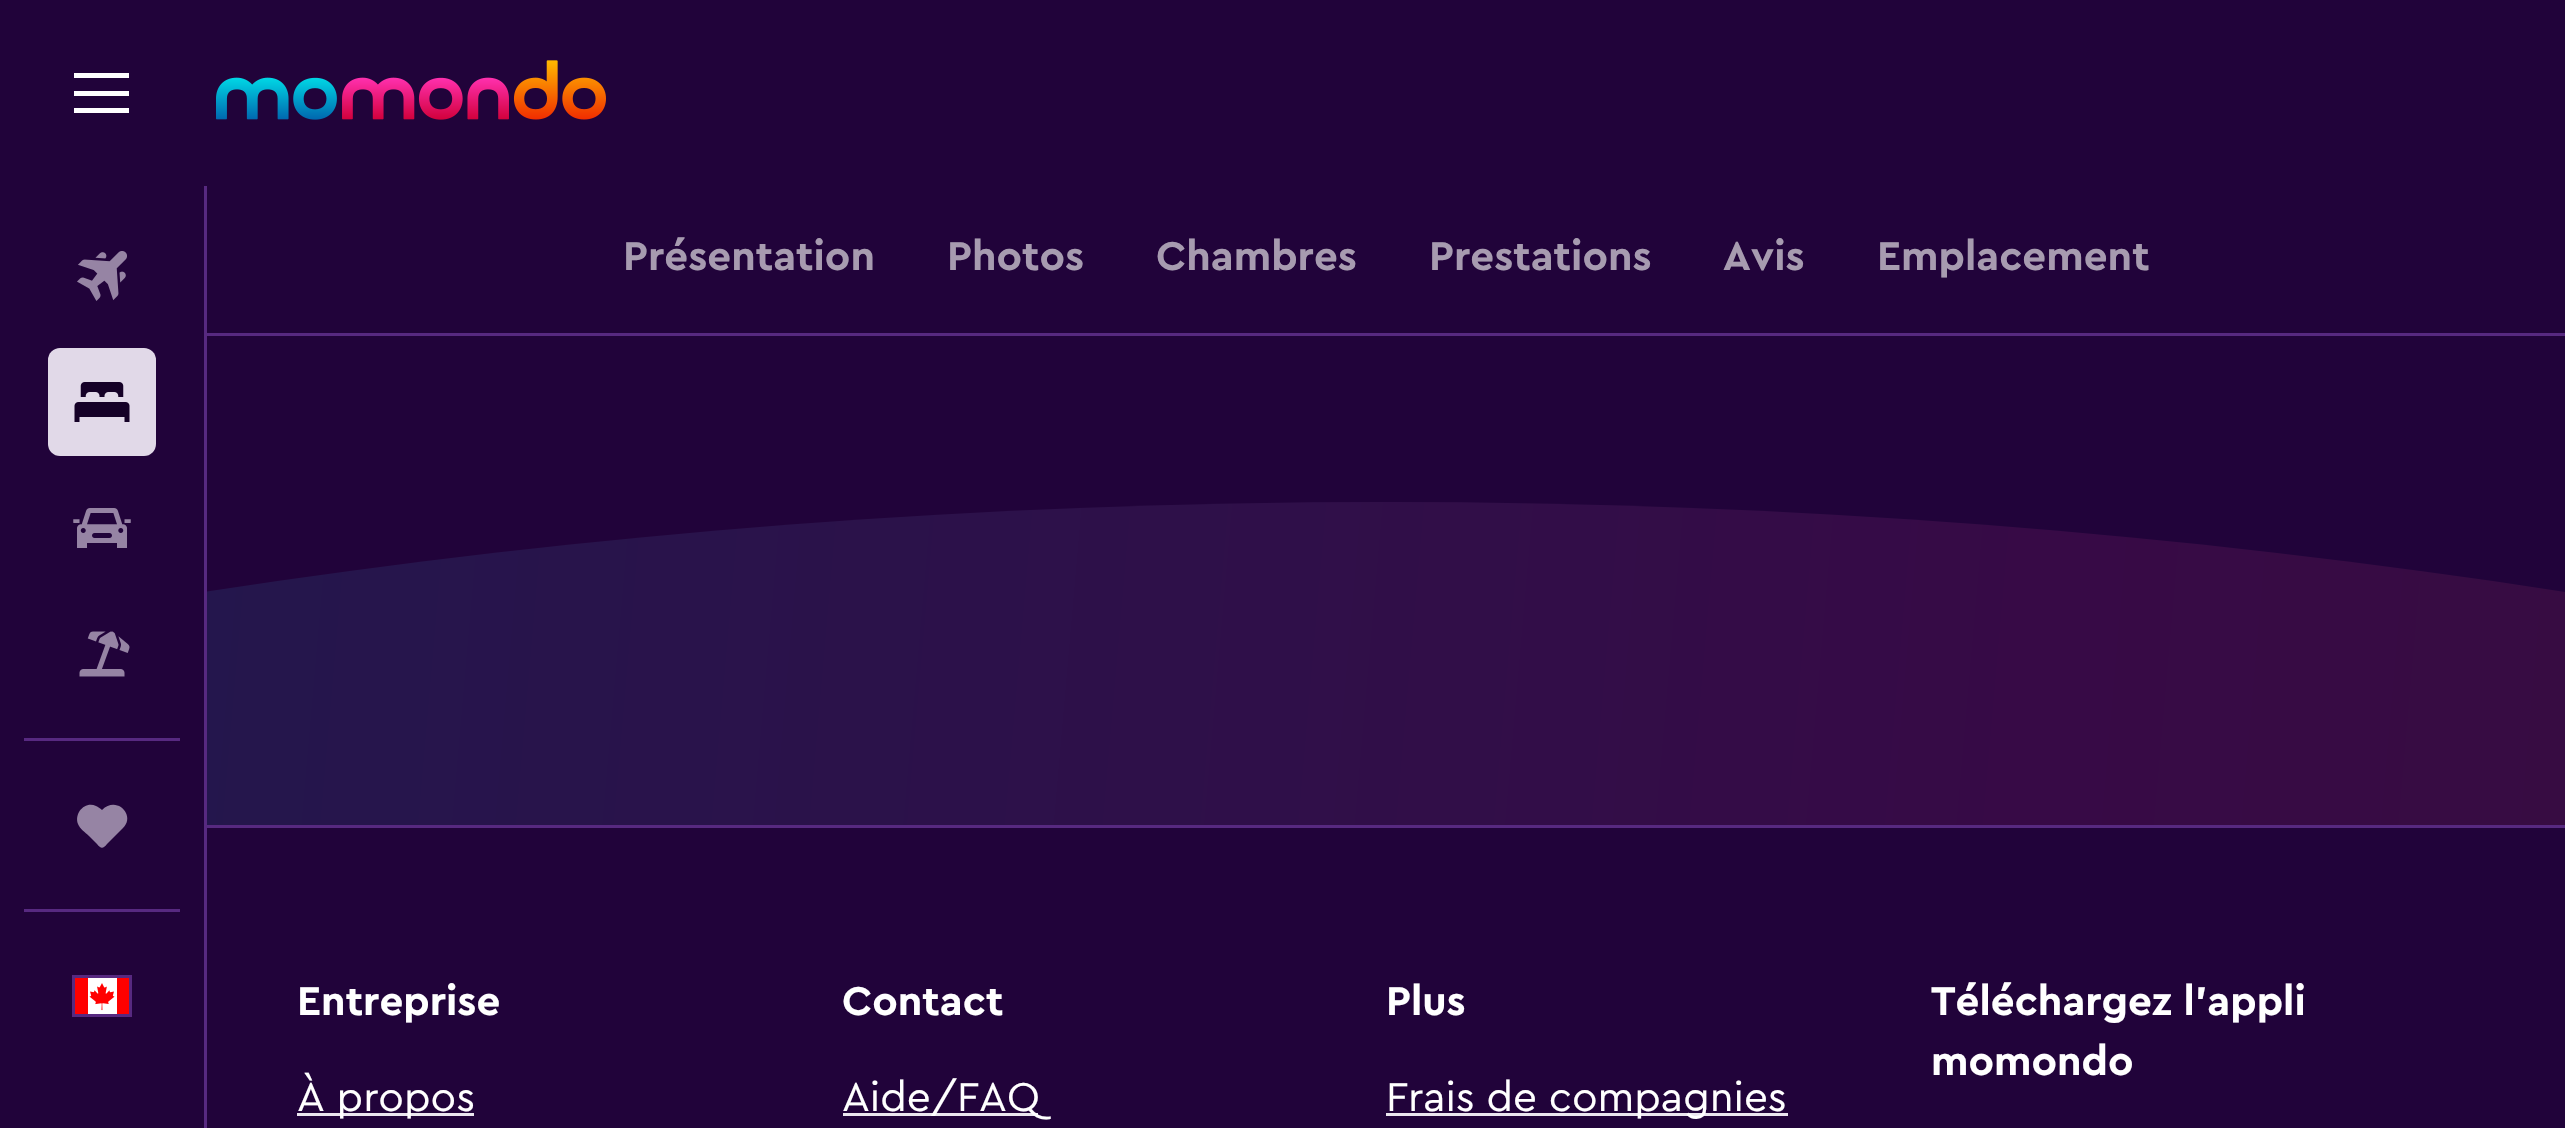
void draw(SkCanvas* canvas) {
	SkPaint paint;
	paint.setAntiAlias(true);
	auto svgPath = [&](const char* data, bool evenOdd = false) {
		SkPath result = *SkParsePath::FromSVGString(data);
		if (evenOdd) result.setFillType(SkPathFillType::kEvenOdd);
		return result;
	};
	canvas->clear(0xff21033a);
	paint.setColor(0xffffffff);
	canvas->drawPath(svgPath("M130 78H74V73H129V78ZM130 108H74V113H129V108ZM130 91H74V96H129V91Z"), paint);
	canvas->drawImageRect(SkImages::DeferredFromEncodedData(SkData::MakeFromFileName("img1.png")), SkRect::MakeXYWH(216, 60, 390, 60), SkSamplingOptions());
	paint.setColor(0xff572980);
	canvas->drawRect(SkRect::MakeXYWH(204, 186, 3, 942), paint);
	canvas->drawImageRect(SkImages::DeferredFromEncodedData(SkData::MakeFromFileName("img2.png")), SkRect::MakeXYWH(77, 251, 50, 50), SkSamplingOptions());
	paint.setColor(0xffe1d9e8);
	canvas->drawRoundRect(SkRect::MakeXYWH(48, 348, 108, 108), 12, 12, paint);
	canvas->drawImageRect(SkImages::DeferredFromEncodedData(SkData::MakeFromFileName("img3.png")), SkRect::MakeXYWH(74, 382, 56, 40), SkSamplingOptions());
	canvas->drawImageRect(SkImages::DeferredFromEncodedData(SkData::MakeFromFileName("img4.png")), SkRect::MakeXYWH(73, 508, 58, 40), SkSamplingOptions());
	canvas->drawImageRect(SkImages::DeferredFromEncodedData(SkData::MakeFromFileName("img5.png")), SkRect::MakeXYWH(79, 631, 51, 46), SkSamplingOptions());
	paint.setColor(0xff572980);
	canvas->drawRect(SkRect::MakeXYWH(24, 738, 156, 3), paint);
	paint.setColor(0xff9684a4);
	canvas->drawPath(svgPath("M123 828L107 844C103 849 101 849 97 844L89 836C85 832 80 829 78 824C74 813 85 801 96 806C98 807 100 808 102 810C117 795 136 816 123 828Z"), paint);
	paint.setColor(0xff572980);
	canvas->drawRect(SkRect::MakeXYWH(24, 909, 156, 3), paint);
	paint.setStroke(true);
	paint.setStrokeWidth(3);
	canvas->drawRect(SkRect::MakeXYWH(73.5, 976.5, 57, 39), paint);
	canvas->drawImageRect(SkImages::DeferredFromEncodedData(SkData::MakeFromFileName("img6.png")), SkRect::MakeXYWH(75, 978, 54, 36), SkSamplingOptions());
	paint.setStroke(false);
	canvas->drawRect(SkRect::MakeXYWH(207, 333, 2358, 3), paint);
	SkFont f1(fontMgr->matchFamilyStyle("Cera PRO", SkFontStyle::Bold()), 42);
	f1.setSubpixel(true);
	paint.setColor(0xffa79bb0);
	canvas->drawString("Présentation", 623, 270, f1, paint);
	canvas->drawString("Photos", 947, 270, f1, paint);
	canvas->drawString("Chambres", 1156, 270, f1, paint);
	canvas->drawString("Prestations", 1429, 270, f1, paint);
	canvas->drawString("Avis", 1723, 270, f1, paint);
	canvas->drawString("Emplacement", 1877, 270, f1, paint);
	canvas->save();
	canvas->clipRect(SkRect::MakeXYWH(207, 501, 2358, 324));
	{
		const SkColor colors[] = {0xff23174d, 0xff370a46, 0xff371238};
		const float stops[] = {0, 0.5, 1};
		const SkPoint ends[] = {{-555, 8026}, {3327, 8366}};
		paint.setShader(SkGradientShader::MakeLinear(ends, colors, stops, 3, SkTileMode::kClamp));
		paint.setAlpha(255);
	}
	canvas->drawPath(svgPath("M1386 502C1823 502 2252 538 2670 609V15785C2292 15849 1905 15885 1510 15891H1262C868 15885 482 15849 105 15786V608C522 538 950 502 1386 502Z"), paint);
	canvas->restore();
	paint.setShader(nullptr);
	paint.setColor(0xff572980);
	canvas->drawRect(SkRect::MakeXYWH(207, 825, 2358, 3), paint);
	paint.setColor(0xffffffff);
	canvas->drawString("Entreprise", 297, 1015, f1, paint);
	paint.setColor(0xffebe6ef);
	canvas->drawRect(SkRect::MakeXYWH(297, 1113, 177, 3), paint);
	SkFont f2(fontMgr->matchFamilyStyle("Cera PRO", SkFontStyle::Normal()), 42);
	f2.setSubpixel(true);
	paint.setColor(0xffffffff);
	canvas->drawString("À propos", 297, 1111, f2, paint);
	canvas->drawString("Contact", 842, 1015, f1, paint);
	paint.setColor(0xffebe6ef);
	canvas->drawRect(SkRect::MakeXYWH(843, 1113, 195, 3), paint);
	paint.setColor(0xffffffff);
	canvas->drawString("Aide/FAQ", 842, 1111, f2, paint);
	canvas->drawString("Plus", 1386, 1015, f1, paint);
	paint.setColor(0xffebe6ef);
	canvas->drawRect(SkRect::MakeXYWH(1386, 1113, 402, 3), paint);
	paint.setColor(0xffffffff);
	canvas->drawString("Frais de compagnies", 1386, 1111, f2, paint);
	canvas->drawString("Téléchargez l’appli", 1931, 1015, f1, paint);
	canvas->drawString("momondo", 1931, 1075, f1, paint);
}
